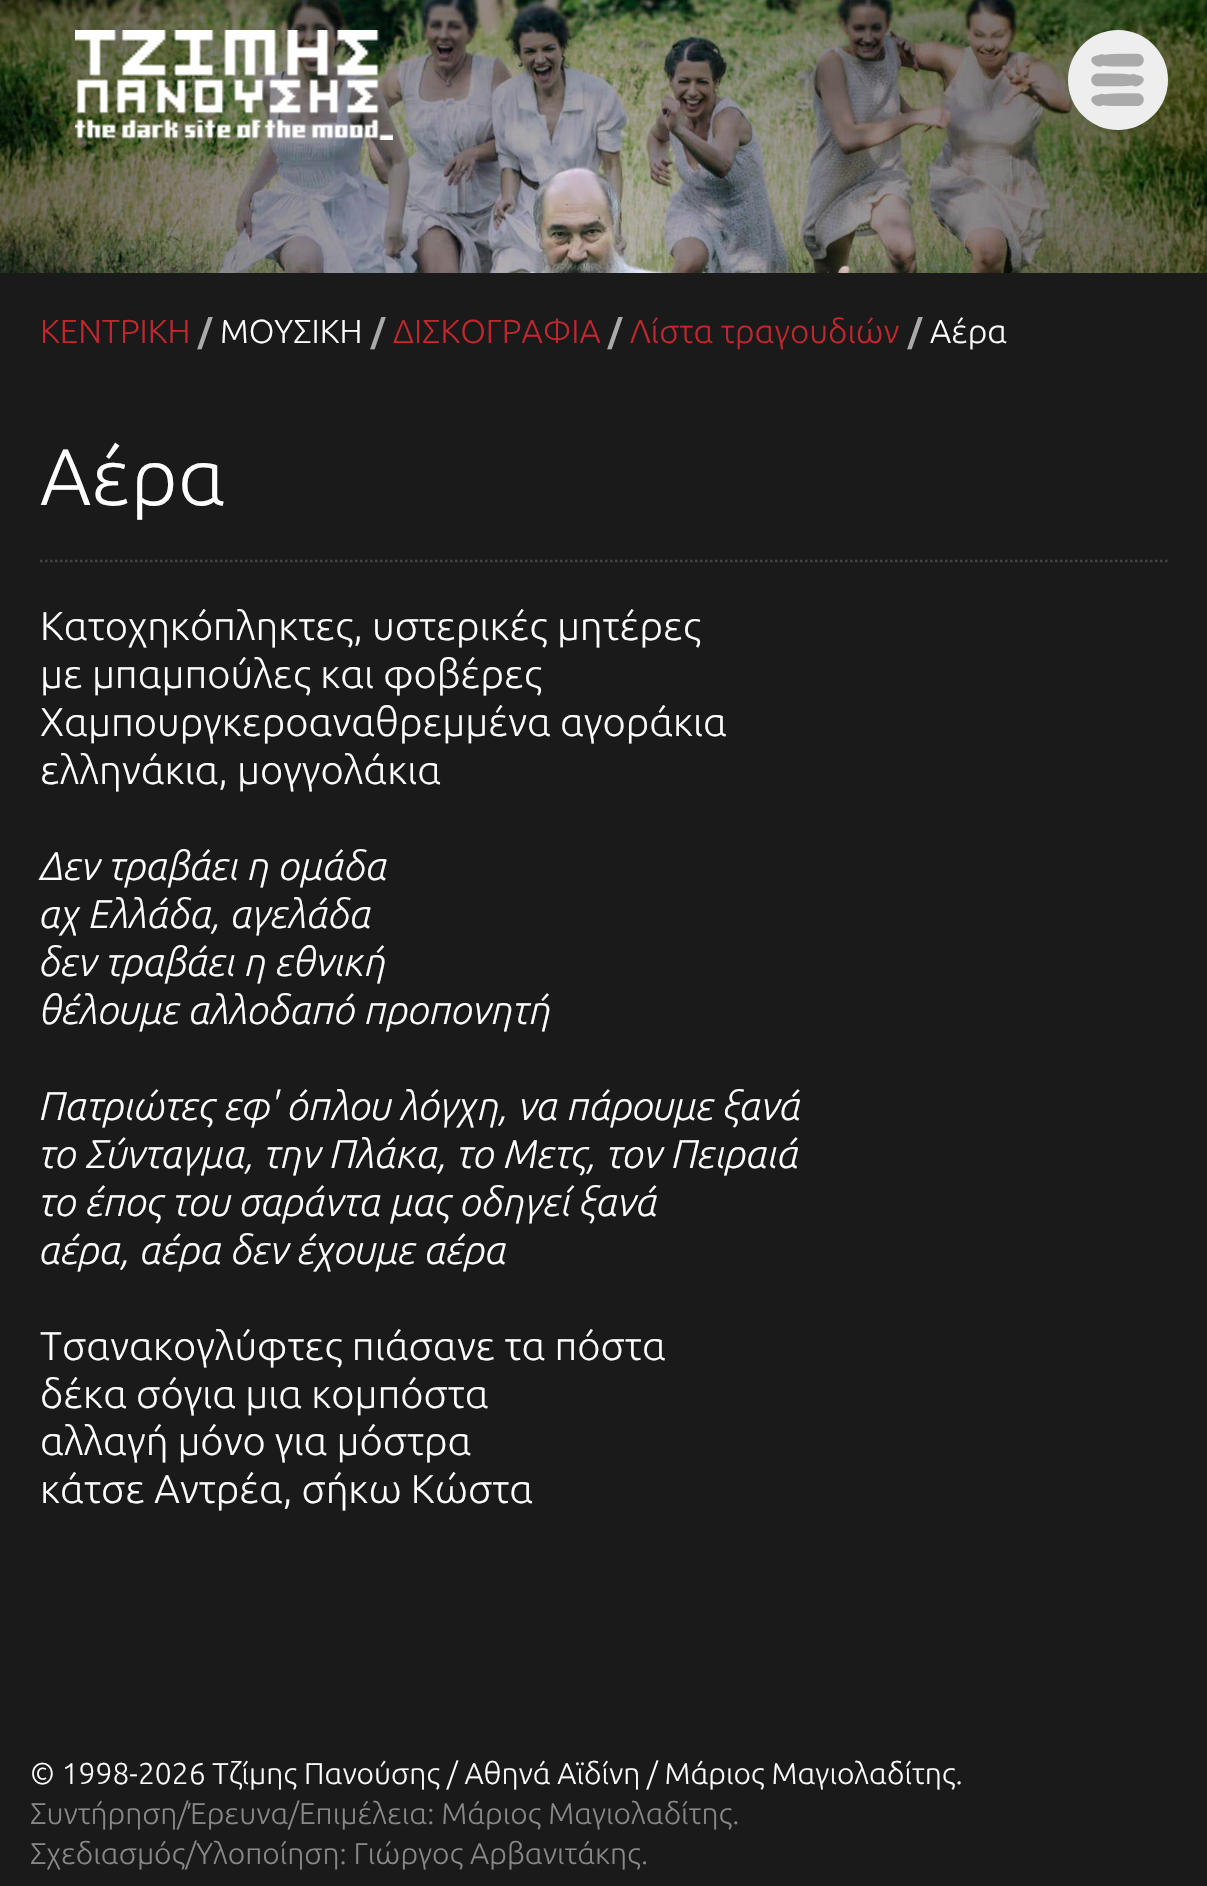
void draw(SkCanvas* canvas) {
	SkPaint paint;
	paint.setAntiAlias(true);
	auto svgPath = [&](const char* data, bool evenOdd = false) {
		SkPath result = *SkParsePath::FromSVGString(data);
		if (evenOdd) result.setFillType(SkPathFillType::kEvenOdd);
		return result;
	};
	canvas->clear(0xff1a1a1a);
	canvas->drawImageRect(SkImages::DeferredFromEncodedData(SkData::MakeFromFileName("img1.png")), SkRect::MakeXYWH(0, 0, 1207, 273), SkSamplingOptions());
	canvas->drawImageRect(SkImages::DeferredFromEncodedData(SkData::MakeFromFileName("img2.png")), SkRect::MakeXYWH(75, 30, 318, 110), SkSamplingOptions());
	paint.setColor(0xffeeeeee);
	canvas->drawCircle(1118, 80, 50, paint);
	canvas->drawImageRect(SkImages::DeferredFromEncodedData(SkData::MakeFromFileName("img3.png")), SkRect::MakeXYWH(1091, 53, 53, 54), SkSamplingOptions());
	SkFont f1(fontMgr->matchFamilyStyle("Ubuntu", SkFontStyle(300, SkFontStyle::kNormal_Width, SkFontStyle::kUpright_Slant)), 33.25);
	f1.setSubpixel(true);
	paint.setColor(0xffc1272d);
	canvas->drawString("ΚΕΝΤΡΙΚΗ", 40, 343, f1, paint);
	SkFont f2(fontMgr->matchFamilyStyle("Ubuntu", SkFontStyle::Bold()), 33.25);
	f2.setSubpixel(true);
	paint.setColor(0xffaaaaaa);
	canvas->drawString("/", 198, 343, f2, paint);
	paint.setColor(0xffffffff);
	canvas->drawString("ΜΟΥΣΙΚΗ", 220, 343, f1, paint);
	paint.setColor(0xffaaaaaa);
	canvas->drawString("/", 371, 343, f2, paint);
	paint.setColor(0xffc1272d);
	canvas->drawString("ΔΙΣΚΟΓΡΑΦΙΑ", 393, 343, f1, paint);
	paint.setColor(0xffaaaaaa);
	canvas->drawString("/", 608, 343, f2, paint);
	paint.setColor(0xffc1272d);
	canvas->drawString("Λίστα τραγουδιών", 630, 343, f1, paint);
	paint.setColor(0xffaaaaaa);
	canvas->drawString("/", 908, 343, f2, paint);
	paint.setColor(0xffffffff);
	canvas->drawString("Αέρα", 930, 343, f1, paint);
	paint.setStroke(true);
	paint.setStrokeWidth(2.5);
	paint.setColor(0xff444444);
	paint.setPathEffect(SkDashPathEffect::Make({{2.5f, 2.5f}}, 0));
	canvas->drawPath(svgPath("M40 561H1167.5"), paint);
	paint.setPathEffect(nullptr);
	SkFont f3(fontMgr->matchFamilyStyle("Ubuntu", SkFontStyle(300, SkFontStyle::kNormal_Width, SkFontStyle::kUpright_Slant)), 80);
	f3.setSubpixel(true);
	paint.setStroke(false);
	paint.setColor(0xffffffff);
	canvas->drawString("Αέρα", 40, 505, f3, paint);
	SkFont f4(fontMgr->matchFamilyStyle("Ubuntu", SkFontStyle(300, SkFontStyle::kNormal_Width, SkFontStyle::kUpright_Slant)), 40);
	f4.setSubpixel(true);
	canvas->drawString("Κατοχηκόπληκτες, υστερικές μητέρες", 40, 640, f4, paint);
	canvas->drawString("με μπαμπούλες και φοβέρες", 40, 688, f4, paint);
	canvas->drawString("Χαμπουργκεροαναθρεμμένα αγοράκια", 40, 736, f4, paint);
	canvas->drawString("ελληνάκια, μογγολάκια", 40, 784, f4, paint);
	SkFont f5(fontMgr->matchFamilyStyle("Ubuntu", SkFontStyle(300, SkFontStyle::kNormal_Width, SkFontStyle::kItalic_Slant)), 40);
	f5.setSubpixel(true);
	canvas->drawString("Δεν τραβάει η ομάδα", 40, 880, f5, paint);
	canvas->drawString("αχ Ελλάδα, αγελάδα", 40, 928, f5, paint);
	canvas->drawString("δεν τραβάει η εθνική", 40, 976, f5, paint);
	canvas->drawString("θέλουμε αλλοδαπό προπονητή", 40, 1024, f5, paint);
	canvas->drawString("Πατριώτες εφ' όπλου λόγχη, να πάρουμε ξανά", 40, 1120, f5, paint);
	canvas->drawString("το Σύνταγμα, την Πλάκα, το Μετς, τον Πειραιά", 40, 1168, f5, paint);
	canvas->drawString("το έπος του σαράντα μας οδηγεί ξανά", 40, 1216, f5, paint);
	canvas->drawString("αέρα, αέρα δεν έχουμε αέρα", 40, 1264, f5, paint);
	canvas->drawString("Τσανακογλύφτες πιάσανε τα πόστα", 40, 1360, f4, paint);
	canvas->drawString("δέκα σόγια μια κομπόστα", 40, 1408, f4, paint);
	canvas->drawString("αλλαγή μόνο για μόστρα", 40, 1455, f4, paint);
	canvas->drawString("κάτσε Αντρέα, σήκω Κώστα", 40, 1503, f4, paint);
	SkFont f6(fontMgr->matchFamilyStyle("Ubuntu", SkFontStyle(300, SkFontStyle::kNormal_Width, SkFontStyle::kUpright_Slant)), 30);
	f6.setSubpixel(true);
	canvas->drawString("© 1998-2026 Τζίμης Πανούσης / Αθηνά Αϊδίνη / Μάριος Μαγιολαδίτης.", 30, 1784, f6, paint);
	paint.setColor(0xff888888);
	canvas->drawString("Συντήρηση/Έρευνα/Επιμέλεια: Μάριος Μαγιολαδίτης.", 30, 1824, f6, paint);
	canvas->drawString("Σχεδιασμός/Υλοποίηση: Γιώργος Αρβανιτάκης.", 30, 1864, f6, paint);
}
